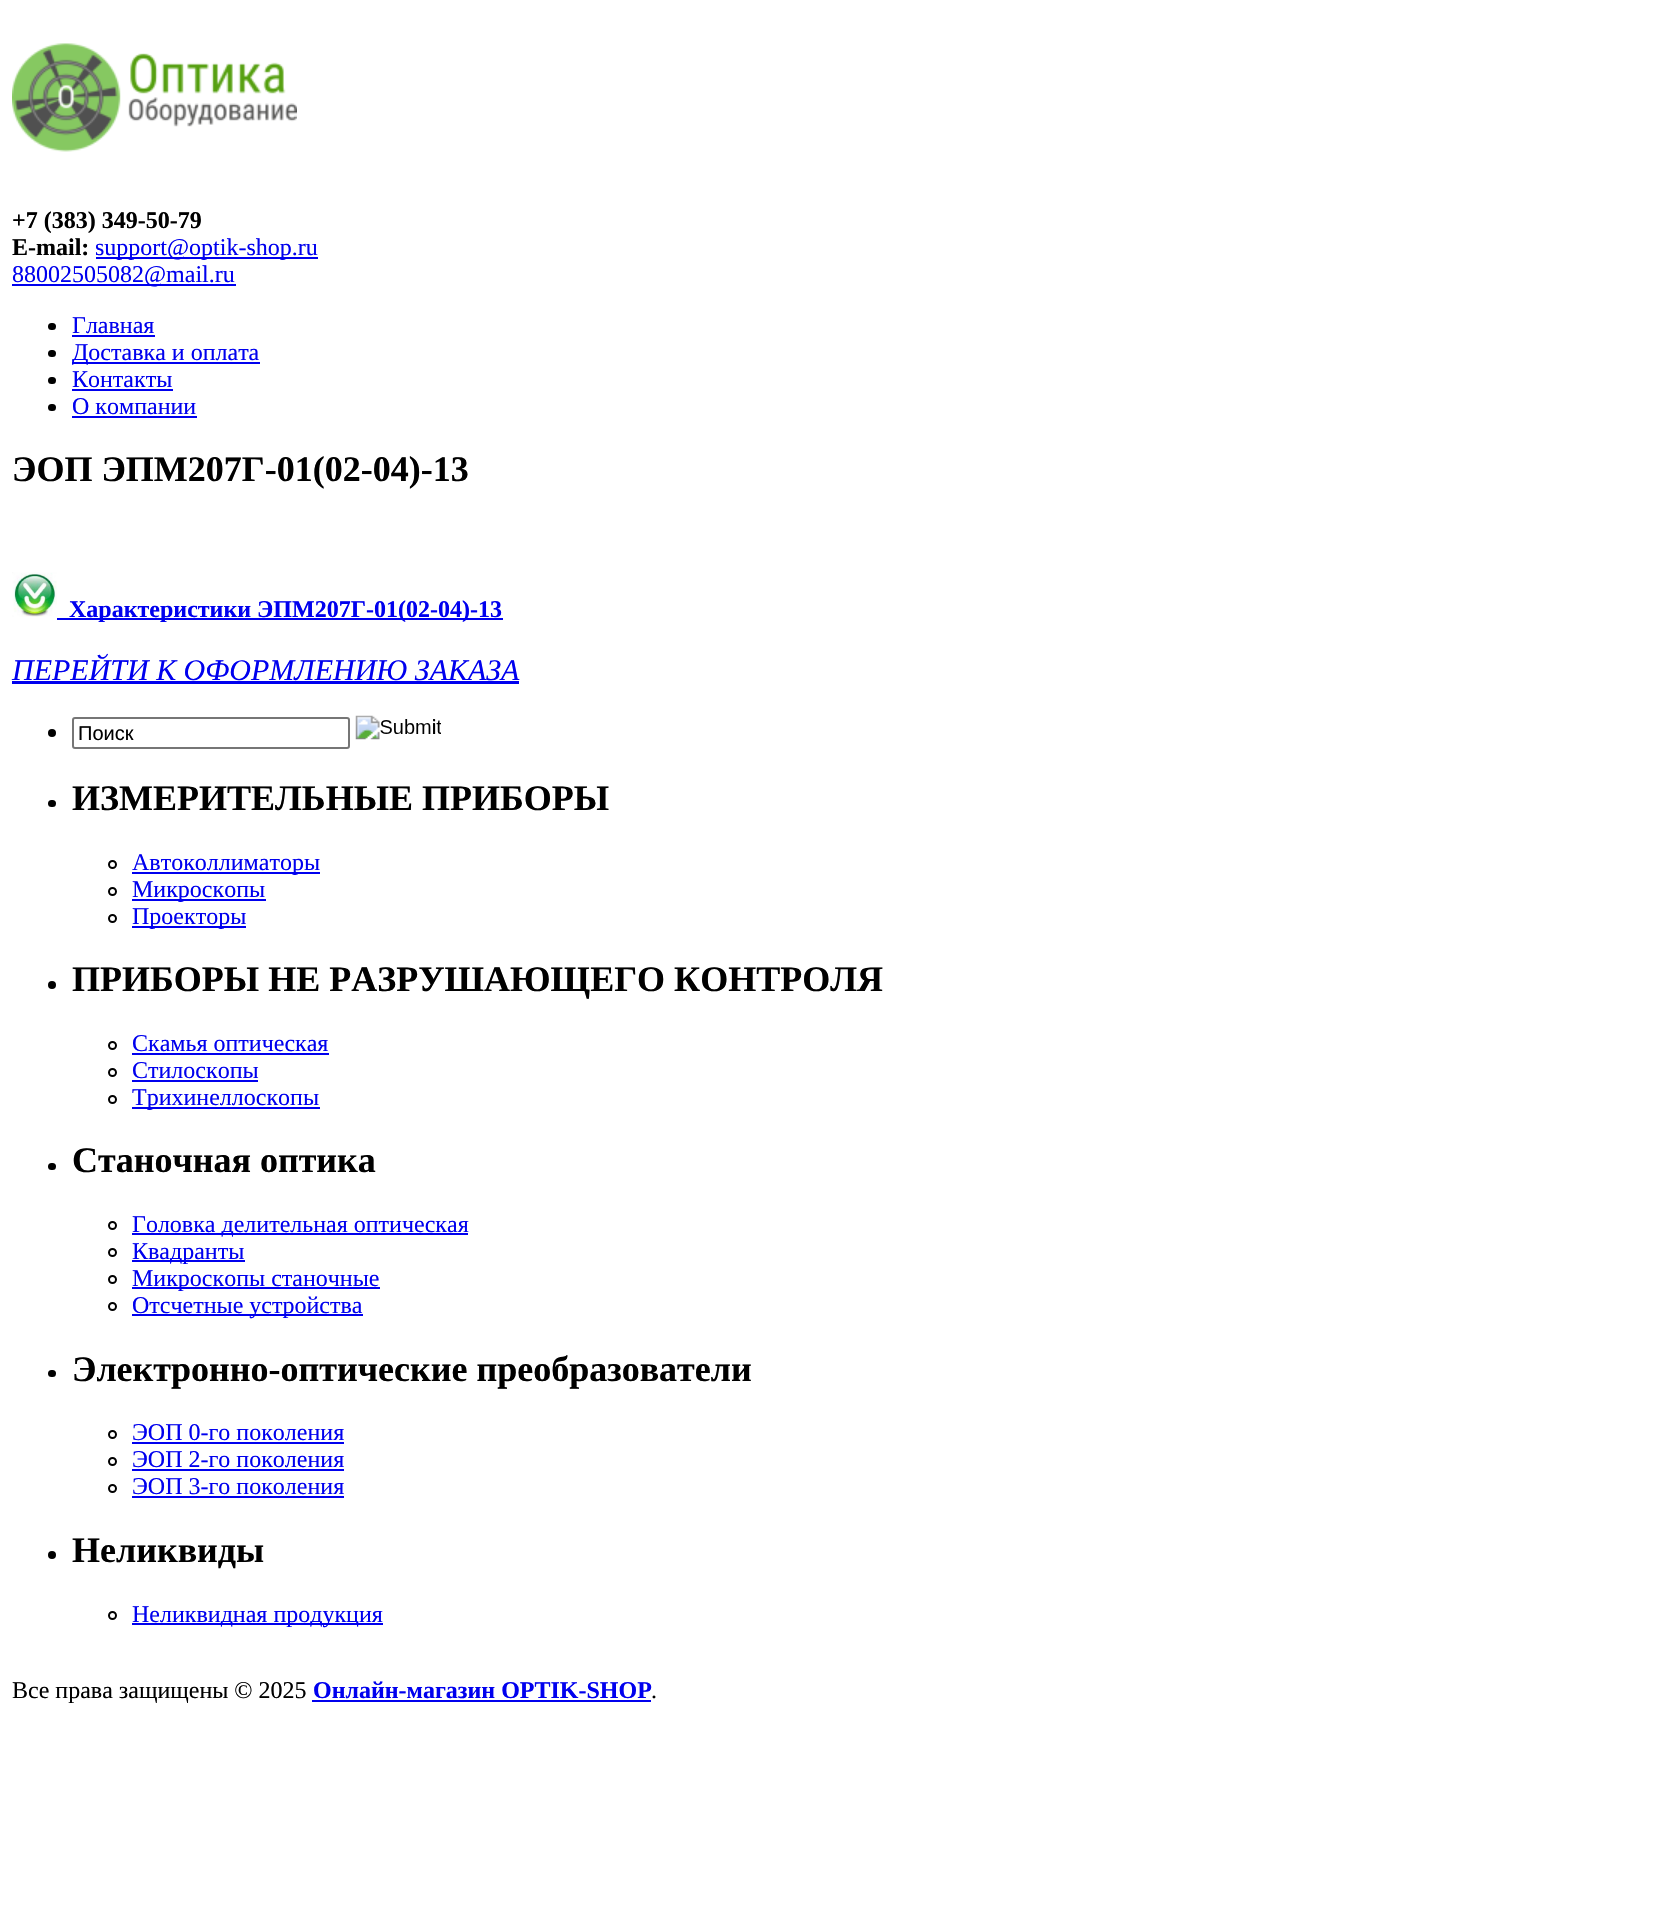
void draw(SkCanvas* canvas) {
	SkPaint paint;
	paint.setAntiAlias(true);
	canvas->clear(0xffffffff);
	canvas->drawImageRect(SkImages::DeferredFromEncodedData(SkData::MakeFromFileName("img1.png")), SkRect::MakeXYWH(12, 43, 285, 109), SkSamplingOptions());
	SkFont f1(fontMgr->matchFamilyStyle("Liberation Serif", SkFontStyle::Bold()), 24);
	f1.setSubpixel(true);
	paint.setColor(0xff000000);
	canvas->drawString("+7 (383) 349-50-79", 12, 228, f1, paint);
	canvas->drawString("E-mail:", 12, 255, f1, paint);
	paint.setColor(0xff0000ee);
	canvas->drawRect(SkRect::MakeXYWH(96, 257, 222, 2), paint);
	SkFont f2(fontMgr->matchFamilyStyle("Liberation Serif", SkFontStyle::Normal()), 24);
	f2.setSubpixel(true);
	canvas->drawString("support@optik-shop.ru", 95, 255, f2, paint);
	canvas->drawRect(SkRect::MakeXYWH(12, 284, 224, 2), paint);
	canvas->drawString("88002505082@mail.ru", 12, 282, f2, paint);
	paint.setColor(0xff000000);
	canvas->drawRoundRect(SkRect::MakeXYWH(48, 323, 8, 7), 3.5, 3.5, paint);
	paint.setColor(0xff0000ee);
	canvas->drawString("Главная", 72, 333, f2, paint);
	canvas->drawRect(SkRect::MakeXYWH(72, 335, 83, 2), paint);
	paint.setColor(0xff000000);
	canvas->drawRoundRect(SkRect::MakeXYWH(48, 350, 8, 7), 3.5, 3.5, paint);
	paint.setColor(0xff0000ee);
	canvas->drawRect(SkRect::MakeXYWH(72, 362, 188, 2), paint);
	canvas->drawString("Доставка и оплата", 72, 360, f2, paint);
	paint.setColor(0xff000000);
	canvas->drawRoundRect(SkRect::MakeXYWH(48, 377, 8, 7), 3.5, 3.5, paint);
	paint.setColor(0xff0000ee);
	canvas->drawString("Контакты", 72, 387, f2, paint);
	canvas->drawRect(SkRect::MakeXYWH(72, 389, 101, 2), paint);
	paint.setColor(0xff000000);
	canvas->drawRoundRect(SkRect::MakeXYWH(48, 404, 8, 7), 3.5, 3.5, paint);
	paint.setColor(0xff0000ee);
	canvas->drawString("О компании", 72, 414, f2, paint);
	canvas->drawRect(SkRect::MakeXYWH(72, 416, 125, 2), paint);
	SkFont f3(fontMgr->matchFamilyStyle("Liberation Serif", SkFontStyle::Bold()), 36);
	f3.setSubpixel(true);
	paint.setColor(0xff000000);
	canvas->drawString("ЭОП ЭПМ207Г-01(02-04)-13", 12, 481, f3, paint);
	canvas->drawImageRect(SkImages::DeferredFromEncodedData(SkData::MakeFromFileName("img2.png")), SkRect::MakeXYWH(12, 572, 45, 45), SkSamplingOptions());
	paint.setColor(0xff0000ee);
	canvas->drawRect(SkRect::MakeXYWH(57, 618, 446, 2), paint);
	canvas->drawString("Характеристики ЭПМ207Г-01(02-04)-13", 69, 617, f1, paint);
	SkFont f4(fontMgr->matchFamilyStyle("Liberation Serif", SkFontStyle::Italic()), 30);
	f4.setSubpixel(true);
	canvas->drawString("ПЕРЕЙТИ К ОФОРМЛЕНИЮ ЗАКАЗА", 12, 680, f4, paint);
	canvas->drawRect(SkRect::MakeXYWH(12, 681, 507, 3), paint);
	paint.setColor(0xff000000);
	canvas->drawCircle(52, 733, 4, paint);
	paint.setStroke(true);
	paint.setStrokeWidth(2);
	paint.setColor(0xff767676);
	canvas->drawRoundRect(SkRect::MakeXYWH(73, 718, 276, 30), 2, 2, paint);
	SkFont f5(fontMgr->matchFamilyStyle("Liberation Sans", SkFontStyle::Normal()), 20);
	f5.setSubpixel(true);
	paint.setStroke(false);
	paint.setColor(0xff000000);
	canvas->drawString("Поиск", 78, 740, f5, paint);
	canvas->drawImageRect(SkImages::DeferredFromEncodedData(SkData::MakeFromFileName("img3.png")), SkRect::MakeXYWH(355, 715, 86, 25), SkSamplingOptions());
	canvas->drawString("i", 432, 734, f5, paint);
	canvas->drawRoundRect(SkRect::MakeXYWH(48, 800, 8, 7), 3.5, 3.5, paint);
	canvas->drawString("ИЗМЕРИТЕЛЬНЫЕ ПРИБОРЫ", 72, 810, f3, paint);
	paint.setStroke(true);
	canvas->drawCircle(112.5, 864.5, 3.5, paint);
	paint.setStroke(false);
	paint.setColor(0xff0000ee);
	canvas->drawRect(SkRect::MakeXYWH(132, 872, 188, 2), paint);
	canvas->drawString("Автоколлиматоры", 132, 870, f2, paint);
	paint.setStroke(true);
	paint.setColor(0xff000000);
	canvas->drawCircle(112.5, 891.5, 3.5, paint);
	paint.setStroke(false);
	paint.setColor(0xff0000ee);
	canvas->drawRect(SkRect::MakeXYWH(132, 899, 134, 2), paint);
	canvas->drawString("Микроскопы", 132, 897, f2, paint);
	paint.setStroke(true);
	paint.setColor(0xff000000);
	canvas->drawCircle(112.5, 918.5, 3.5, paint);
	paint.setStroke(false);
	paint.setColor(0xff0000ee);
	canvas->drawRect(SkRect::MakeXYWH(132, 926, 114, 2), paint);
	canvas->drawString("Проекторы", 132, 924, f2, paint);
	paint.setColor(0xff000000);
	canvas->drawCircle(52, 985, 4, paint);
	canvas->drawString("ПРИБОРЫ НЕ РАЗРУШАЮЩЕГО КОНТРОЛЯ", 72, 991, f3, paint);
	paint.setStroke(true);
	canvas->drawCircle(112.5, 1045.5, 3.5, paint);
	paint.setStroke(false);
	paint.setColor(0xff0000ee);
	canvas->drawString("Скамья оптическая", 132, 1051, f2, paint);
	canvas->drawRect(SkRect::MakeXYWH(132, 1053, 197, 2), paint);
	paint.setStroke(true);
	paint.setColor(0xff000000);
	canvas->drawCircle(112.5, 1072.5, 3.5, paint);
	paint.setStroke(false);
	paint.setColor(0xff0000ee);
	canvas->drawString("Стилоскопы", 132, 1078, f2, paint);
	canvas->drawRect(SkRect::MakeXYWH(132, 1080, 126, 2), paint);
	paint.setStroke(true);
	paint.setColor(0xff000000);
	canvas->drawCircle(112.5, 1099.5, 3.5, paint);
	paint.setStroke(false);
	paint.setColor(0xff0000ee);
	canvas->drawRect(SkRect::MakeXYWH(132, 1107, 188, 2), paint);
	canvas->drawString("Трихинеллоскопы", 132, 1105, f2, paint);
	paint.setColor(0xff000000);
	canvas->drawRoundRect(SkRect::MakeXYWH(48, 1163, 8, 7), 3.5, 3.5, paint);
	canvas->drawString("Станочная оптика", 72, 1172, f3, paint);
	paint.setStroke(true);
	canvas->drawCircle(112.5, 1225.5, 3.5, paint);
	paint.setStroke(false);
	paint.setColor(0xff0000ee);
	canvas->drawRect(SkRect::MakeXYWH(132, 1233, 336, 2), paint);
	canvas->drawString("Головка делительная оптическая", 132, 1232, f2, paint);
	paint.setStroke(true);
	paint.setColor(0xff000000);
	canvas->drawCircle(112.5, 1252.5, 3.5, paint);
	paint.setStroke(false);
	paint.setColor(0xff0000ee);
	canvas->drawRect(SkRect::MakeXYWH(132, 1260, 113, 2), paint);
	canvas->drawString("Квадранты", 132, 1259, f2, paint);
	paint.setStroke(true);
	paint.setColor(0xff000000);
	canvas->drawCircle(112.5, 1279.5, 3.5, paint);
	paint.setStroke(false);
	paint.setColor(0xff0000ee);
	canvas->drawRect(SkRect::MakeXYWH(132, 1287, 248, 2), paint);
	canvas->drawString("Микроскопы станочные", 132, 1286, f2, paint);
	paint.setStroke(true);
	paint.setColor(0xff000000);
	canvas->drawCircle(112.5, 1306.5, 3.5, paint);
	paint.setStroke(false);
	paint.setColor(0xff0000ee);
	canvas->drawRect(SkRect::MakeXYWH(132, 1314, 231, 2), paint);
	canvas->drawString("Отсчетные устройства", 132, 1313, f2, paint);
	paint.setColor(0xff000000);
	canvas->drawRoundRect(SkRect::MakeXYWH(48, 1370, 8, 7), 3.5, 3.5, paint);
	canvas->drawString("Электронно-оптические преобразователи", 72, 1381, f3, paint);
	paint.setStroke(true);
	canvas->drawCircle(112.5, 1434.5, 3.5, paint);
	paint.setStroke(false);
	paint.setColor(0xff0000ee);
	canvas->drawString("ЭОП 0-го поколения", 132, 1440, f2, paint);
	canvas->drawRect(SkRect::MakeXYWH(132, 1442, 212, 2), paint);
	paint.setStroke(true);
	paint.setColor(0xff000000);
	canvas->drawCircle(112.5, 1461.5, 3.5, paint);
	paint.setStroke(false);
	paint.setColor(0xff0000ee);
	canvas->drawString("ЭОП 2-го поколения", 132, 1467, f2, paint);
	canvas->drawRect(SkRect::MakeXYWH(132, 1469, 212, 2), paint);
	paint.setStroke(true);
	paint.setColor(0xff000000);
	canvas->drawCircle(112.5, 1488.5, 3.5, paint);
	paint.setStroke(false);
	paint.setColor(0xff0000ee);
	canvas->drawString("ЭОП 3-го поколения", 132, 1494, f2, paint);
	canvas->drawRect(SkRect::MakeXYWH(132, 1496, 212, 2), paint);
	paint.setColor(0xff000000);
	canvas->drawCircle(52, 1555, 4, paint);
	canvas->drawString("Неликвиды", 72, 1562, f3, paint);
	paint.setStroke(true);
	canvas->drawCircle(112.5, 1615.5, 3.5, paint);
	paint.setStroke(false);
	paint.setColor(0xff0000ee);
	canvas->drawRect(SkRect::MakeXYWH(132, 1623, 251, 2), paint);
	canvas->drawString("Неликвидная продукция", 132, 1622, f2, paint);
	paint.setColor(0xff000000);
	canvas->drawString("Все права защищены © 2025", 12, 1698, f2, paint);
	paint.setColor(0xff0000ee);
	canvas->drawString("Онлайн-магазин OPTIK-SHOP", 313, 1698, f1, paint);
	canvas->drawRect(SkRect::MakeXYWH(312, 1700, 339, 2), paint);
	paint.setColor(0xff000000);
	canvas->drawString(".", 651, 1698, f2, paint);
}
